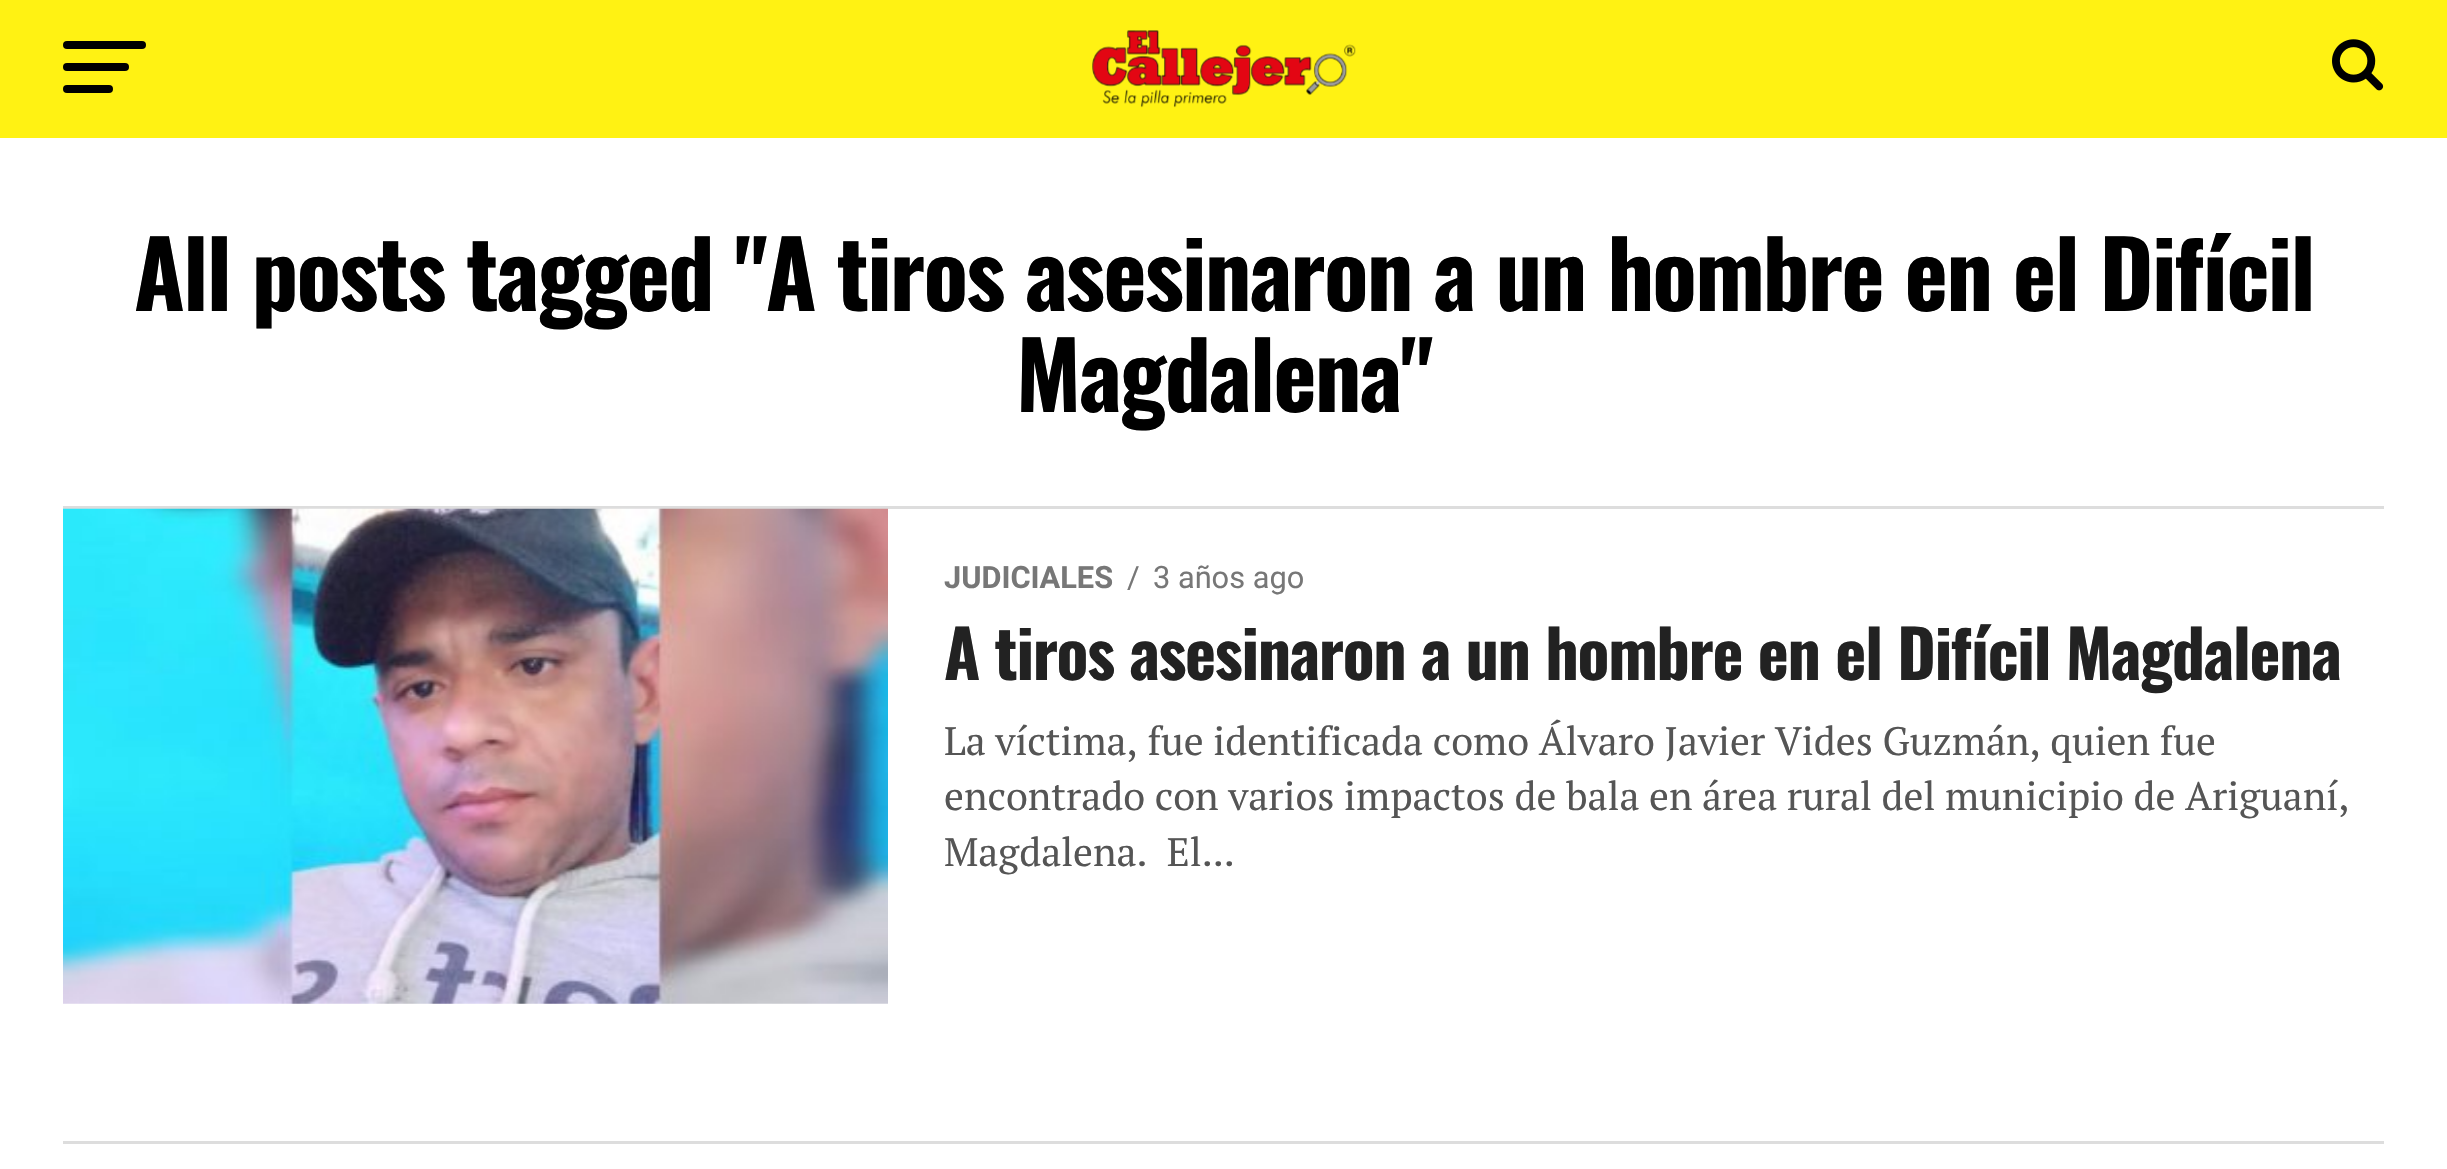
void draw(SkCanvas* canvas) {
	SkPaint paint;
	paint.setAntiAlias(true);
	auto spacedText = [&](const char* s, float x, float y, const SkFont& font, const SkPaint& ink, float letter, float word) {
		std::vector<SkGlyphID> glyphs(font.countText(s, strlen(s), SkTextEncoding::kUTF8));
		std::vector<float> xs(glyphs.size());
		font.textToGlyphs(s, strlen(s), SkTextEncoding::kUTF8, glyphs);
		font.getXPos(glyphs, xs, x);
		float extra = 0;
		for (size_t i = 0; i < glyphs.size(); i++) {
			xs[i] += extra;
			extra += letter + word * (glyphs[i] == font.unicharToGlyph(' '));
		}
		canvas->drawTextBlob(SkTextBlob::MakeFromPosHGlyphs(glyphs, xs, y, font), 0, 0, ink);
	};
	canvas->clear(0xffffffff);
	paint.setColor(0xfffff213);
	canvas->drawRect(SkRect::MakeXYWH(0, 0, 2447, 138), paint);
	paint.setColor(0xff000000);
	canvas->drawRoundRect(SkRect::MakeXYWH(63, 41, 83, 8), 4, 4, paint);
	canvas->drawRoundRect(SkRect::MakeXYWH(63, 63, 66, 8), 4, 4, paint);
	canvas->drawRoundRect(SkRect::MakeXYWH(63, 85, 50, 8), 4, 4, paint);
	canvas->drawImageRect(SkImages::DeferredFromEncodedData(SkData::MakeFromFileName("img1.png")), SkRect::MakeXYWH(1092, 30, 264, 78), SkSamplingOptions());
	canvas->drawImageRect(SkImages::DeferredFromEncodedData(SkData::MakeFromFileName("img2.png")), SkRect::MakeXYWH(2332, 39, 52, 52), SkSamplingOptions());
	SkFont f1(fontMgr->matchFamilyStyle("Oswald", SkFontStyle::Bold()), 92.4);
	f1.setSubpixel(true);
	spacedText("All posts tagged \"A tiros asesinaron a un hombre en el Difícil", 134, 311, f1, paint, -1.85, -0.1);
	spacedText("Magdalena\"", 1016, 412, f1, paint, -1.85, 0);
	paint.setColor(0xffdddddd);
	canvas->drawRect(SkRect::MakeXYWH(63, 506, 2321, 3), paint);
	canvas->drawImageRect(SkImages::DeferredFromEncodedData(SkData::MakeFromFileName("img3.png")), SkRect::MakeXYWH(63, 508, 825, 496), SkSamplingOptions());
	SkFont f2(fontMgr->matchFamilyStyle("Roboto", SkFontStyle::Bold()), 30.75);
	f2.setSubpixel(true);
	paint.setColor(0xff777777);
	canvas->drawString("JUDICIALES", 944, 588, f2, paint);
	SkFont f3(fontMgr->matchFamilyStyle("Roboto", SkFontStyle::Normal()), 30.75);
	f3.setSubpixel(true);
	canvas->drawString("/", 1127, 588, f3, paint);
	canvas->drawString("3 años ago", 1153, 588, f3, paint);
	SkFont f4(fontMgr->matchFamilyStyle("Oswald", SkFontStyle::Bold()), 66);
	f4.setSubpixel(true);
	paint.setColor(0xff222222);
	spacedText("A tiros asesinaron a un hombre en el Difícil Magdalena", 944, 680, f4, paint, -1.32, 0);
	SkFont f5(fontMgr->matchFamilyStyle("PT Serif", SkFontStyle::Normal()), 39.6);
	f5.setSubpixel(true);
	paint.setColor(0xff555555);
	canvas->drawString("La víctima, fue identificada como Álvaro Javier Vides Guzmán, quien fue", 944, 755, f5, paint);
	canvas->drawString("encontrado con varios impactos de bala en área rural del municipio de Ariguaní,", 944, 810, f5, paint);
	canvas->drawString("Magdalena.  El...", 944, 866, f5, paint);
	paint.setColor(0xffdddddd);
	canvas->drawRect(SkRect::MakeXYWH(63, 1141, 2321, 3), paint);
}
